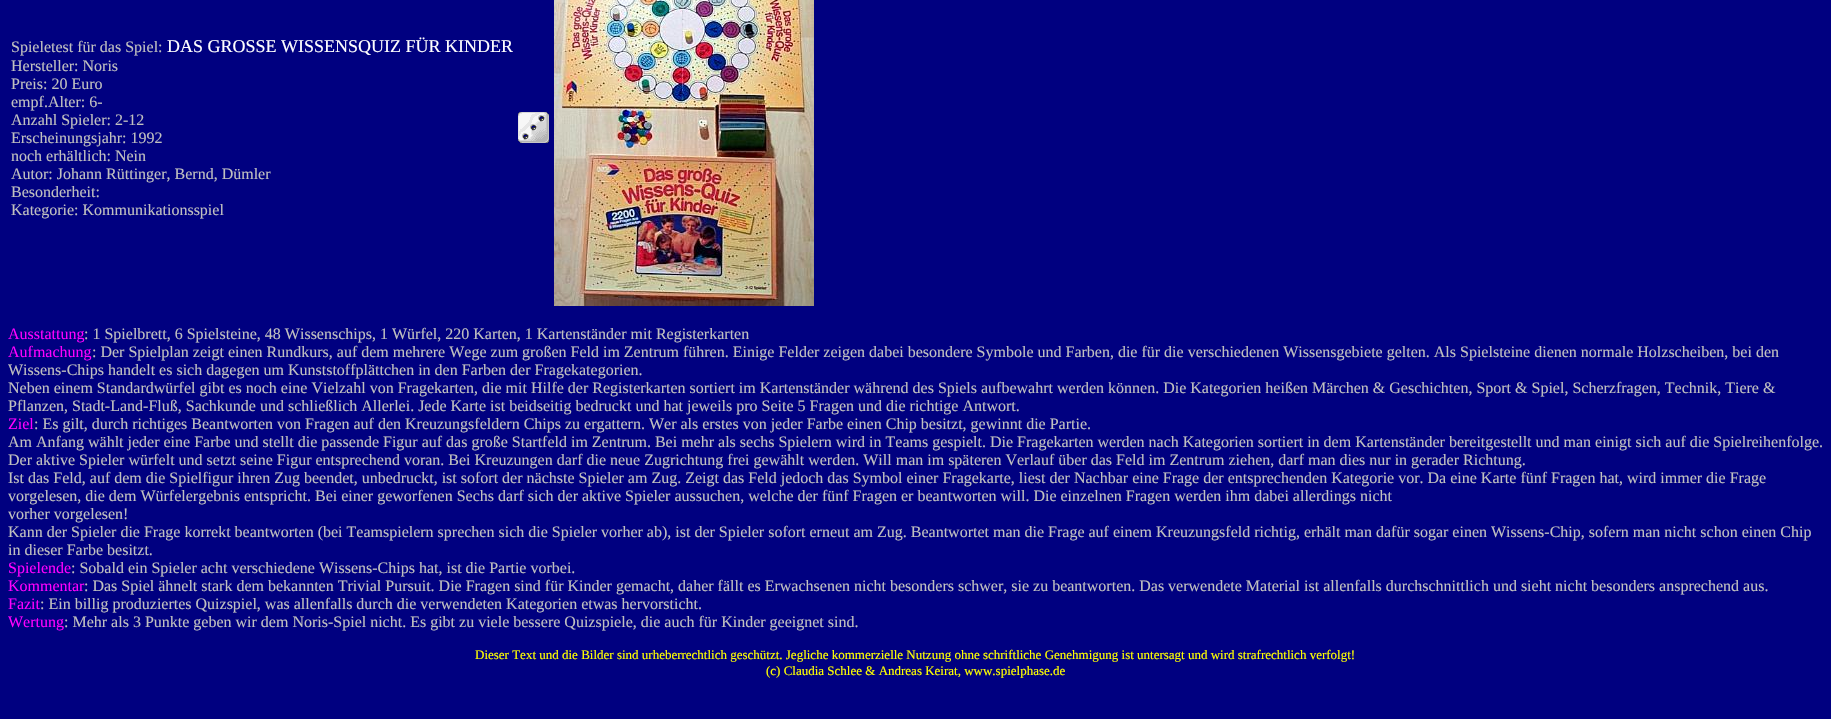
void draw(SkCanvas* canvas) {
	SkPaint paint;
	paint.setAntiAlias(true);
	canvas->clear(0xff000080);
	SkFont f1(fontMgr->matchFamilyStyle("Liberation Serif", SkFontStyle::Normal()), 16);
	f1.setSubpixel(true);
	paint.setColor(0xffc0c0c0);
	canvas->drawString("Spieletest für das Spiel:", 11, 52, f1, paint);
	SkFont f2(fontMgr->matchFamilyStyle("Liberation Serif", SkFontStyle::Normal()), 18);
	f2.setSubpixel(true);
	paint.setColor(0xffffffff);
	canvas->drawString("DAS GROSSE WISSENSQUIZ FÜR KINDER", 167, 52, f2, paint);
	paint.setColor(0xffc0c0c0);
	canvas->drawString("Hersteller: Noris", 11, 71, f1, paint);
	canvas->drawString("Preis: 20 Euro", 11, 89, f1, paint);
	canvas->drawString("empf.Alter: 6-", 11, 107, f1, paint);
	canvas->drawString("Anzahl Spieler: 2-12", 11, 125, f1, paint);
	canvas->drawString("Erscheinungsjahr: 1992", 11, 143, f1, paint);
	canvas->drawString("noch erhältlich: Nein", 11, 161, f1, paint);
	canvas->drawString("Autor: Johann Rüttinger, Bernd, Dümler", 11, 179, f1, paint);
	canvas->drawString("Besonderheit:", 11, 197, f1, paint);
	canvas->drawString("Kategorie: Kommunikationsspiel", 11, 215, f1, paint);
	canvas->drawImageRect(SkImages::DeferredFromEncodedData(SkData::MakeFromFileName("img1.png")), SkRect::MakeXYWH(518, 112, 31, 31), SkSamplingOptions());
	canvas->drawImageRect(SkImages::DeferredFromEncodedData(SkData::MakeFromFileName("img2.png")), SkRect::MakeXYWH(554, 0, 260, 306), SkSamplingOptions());
	paint.setColor(0xffff00ff);
	canvas->drawString("Ausstattung", 8, 339, f1, paint);
	paint.setColor(0xffc0c0c0);
	canvas->drawString(": 1 Spielbrett, 6 Spielsteine, 48 Wissenschips, 1 Würfel, 220 Karten, 1 Kartenständer mit Registerkarten", 84, 339, f1, paint);
	paint.setColor(0xffff00ff);
	canvas->drawString("Aufmachung", 8, 357, f1, paint);
	paint.setColor(0xffc0c0c0);
	canvas->drawString(": Der Spielplan zeigt einen Rundkurs, auf dem mehrere Wege zum großen Feld im Zentrum führen. Einige Felder zeigen dabei besondere Symbole und Farben, die für die verschiedenen Wissensgebiete gelten. Als Spielsteine dienen normale Holzscheiben, bei den", 92, 357, f1, paint);
	canvas->drawString("Wissens-Chips handelt es sich dagegen um Kunststoffplättchen in den Farben der Fragekategorien.", 8, 375, f1, paint);
	canvas->drawString("Neben einem Standardwürfel gibt es noch eine Vielzahl von Fragekarten, die mit Hilfe der Registerkarten sortiert im Kartenständer während des Spiels aufbewahrt werden können. Die Kategorien heißen Märchen & Geschichten, Sport & Spiel, Scherzfragen, Technik, Tiere &", 8, 393, f1, paint);
	canvas->drawString("Pflanzen, Stadt-Land-Fluß, Sachkunde und schließlich Allerlei. Jede Karte ist beidseitig bedruckt und hat jeweils pro Seite 5 Fragen und die richtige Antwort.", 8, 411, f1, paint);
	paint.setColor(0xffff00ff);
	canvas->drawString("Ziel", 8, 429, f1, paint);
	paint.setColor(0xffc0c0c0);
	canvas->drawString(": Es gilt, durch richtiges Beantworten von Fragen auf den Kreuzungsfeldern Chips zu ergattern. Wer als erstes von jeder Farbe einen Chip besitzt, gewinnt die Partie.", 34, 429, f1, paint);
	canvas->drawString("Am Anfang wählt jeder eine Farbe und stellt die passende Figur auf das große Startfeld im Zentrum. Bei mehr als sechs Spielern wird in Teams gespielt. Die Fragekarten werden nach Kategorien sortiert in dem Kartenständer bereitgestellt und man einigt sich auf die Spielreihenfolge.", 8, 447, f1, paint);
	canvas->drawString("Der aktive Spieler würfelt und setzt seine Figur entsprechend voran. Bei Kreuzungen darf die neue Zugrichtung frei gewählt werden. Will man im späteren Verlauf über das Feld im Zentrum ziehen, darf man dies nur in gerader Richtung.", 8, 465, f1, paint);
	canvas->drawString("Ist das Feld, auf dem die Spielfigur ihren Zug beendet, unbedruckt, ist sofort der nächste Spieler am Zug. Zeigt das Feld jedoch das Symbol einer Fragekarte, liest der Nachbar eine Frage der entsprechenden Kategorie vor. Da eine Karte fünf Fragen hat, wird immer die Frage", 8, 483, f1, paint);
	canvas->drawString("vorgelesen, die dem Würfelergebnis entspricht. Bei einer geworfenen Sechs darf sich der aktive Spieler aussuchen, welche der fünf Fragen er beantworten will. Die einzelnen Fragen werden ihm dabei allerdings nicht", 8, 501, f1, paint);
	canvas->drawString("vorher vorgelesen!", 8, 519, f1, paint);
	canvas->drawString("Kann der Spieler die Frage korrekt beantworten (bei Teamspielern sprechen sich die Spieler vorher ab), ist der Spieler sofort erneut am Zug. Beantwortet man die Frage auf einem Kreuzungsfeld richtig, erhält man dafür sogar einen Wissens-Chip, sofern man nicht schon einen Chip", 8, 537, f1, paint);
	canvas->drawString("in dieser Farbe besitzt.", 8, 555, f1, paint);
	paint.setColor(0xffff00ff);
	canvas->drawString("Spielende", 8, 573, f1, paint);
	paint.setColor(0xffc0c0c0);
	canvas->drawString(": Sobald ein Spieler acht verschiedene Wissens-Chips hat, ist die Partie vorbei.", 71, 573, f1, paint);
	paint.setColor(0xffff00ff);
	canvas->drawString("Kommentar", 8, 591, f1, paint);
	paint.setColor(0xffc0c0c0);
	canvas->drawString(": Das Spiel ähnelt stark dem bekannten Trivial Pursuit. Die Fragen sind für Kinder gemacht, daher fällt es Erwachsenen nicht besonders schwer, sie zu beantworten. Das verwendete Material ist allenfalls durchschnittlich und sieht nicht besonders ansprechend aus.", 84, 591, f1, paint);
	paint.setColor(0xffff00ff);
	canvas->drawString("Fazit", 8, 609, f1, paint);
	paint.setColor(0xffc0c0c0);
	canvas->drawString(": Ein billig produziertes Quizspiel, was allenfalls durch die verwendeten Kategorien etwas hervorsticht.", 40, 609, f1, paint);
	paint.setColor(0xffff00ff);
	canvas->drawString("Wertung", 8, 627, f1, paint);
	paint.setColor(0xffc0c0c0);
	canvas->drawString(": Mehr als 3 Punkte geben wir dem Noris-Spiel nicht. Es gibt zu viele bessere Quizspiele, die auch für Kinder geeignet sind.", 64, 627, f1, paint);
	SkFont f3(fontMgr->matchFamilyStyle("Liberation Serif", SkFontStyle::Normal()), 13);
	f3.setSubpixel(true);
	paint.setColor(0xffffff00);
	canvas->drawString("Dieser Text und die Bilder sind urheberrechtlich geschützt. Jegliche kommerzielle Nutzung ohne schriftliche Genehmigung ist untersagt und wird strafrechtlich verfolgt!", 475, 659, f3, paint);
	canvas->drawString("(c) Claudia Schlee & Andreas Keirat, www.spielphase.de", 766, 675, f3, paint);
}
